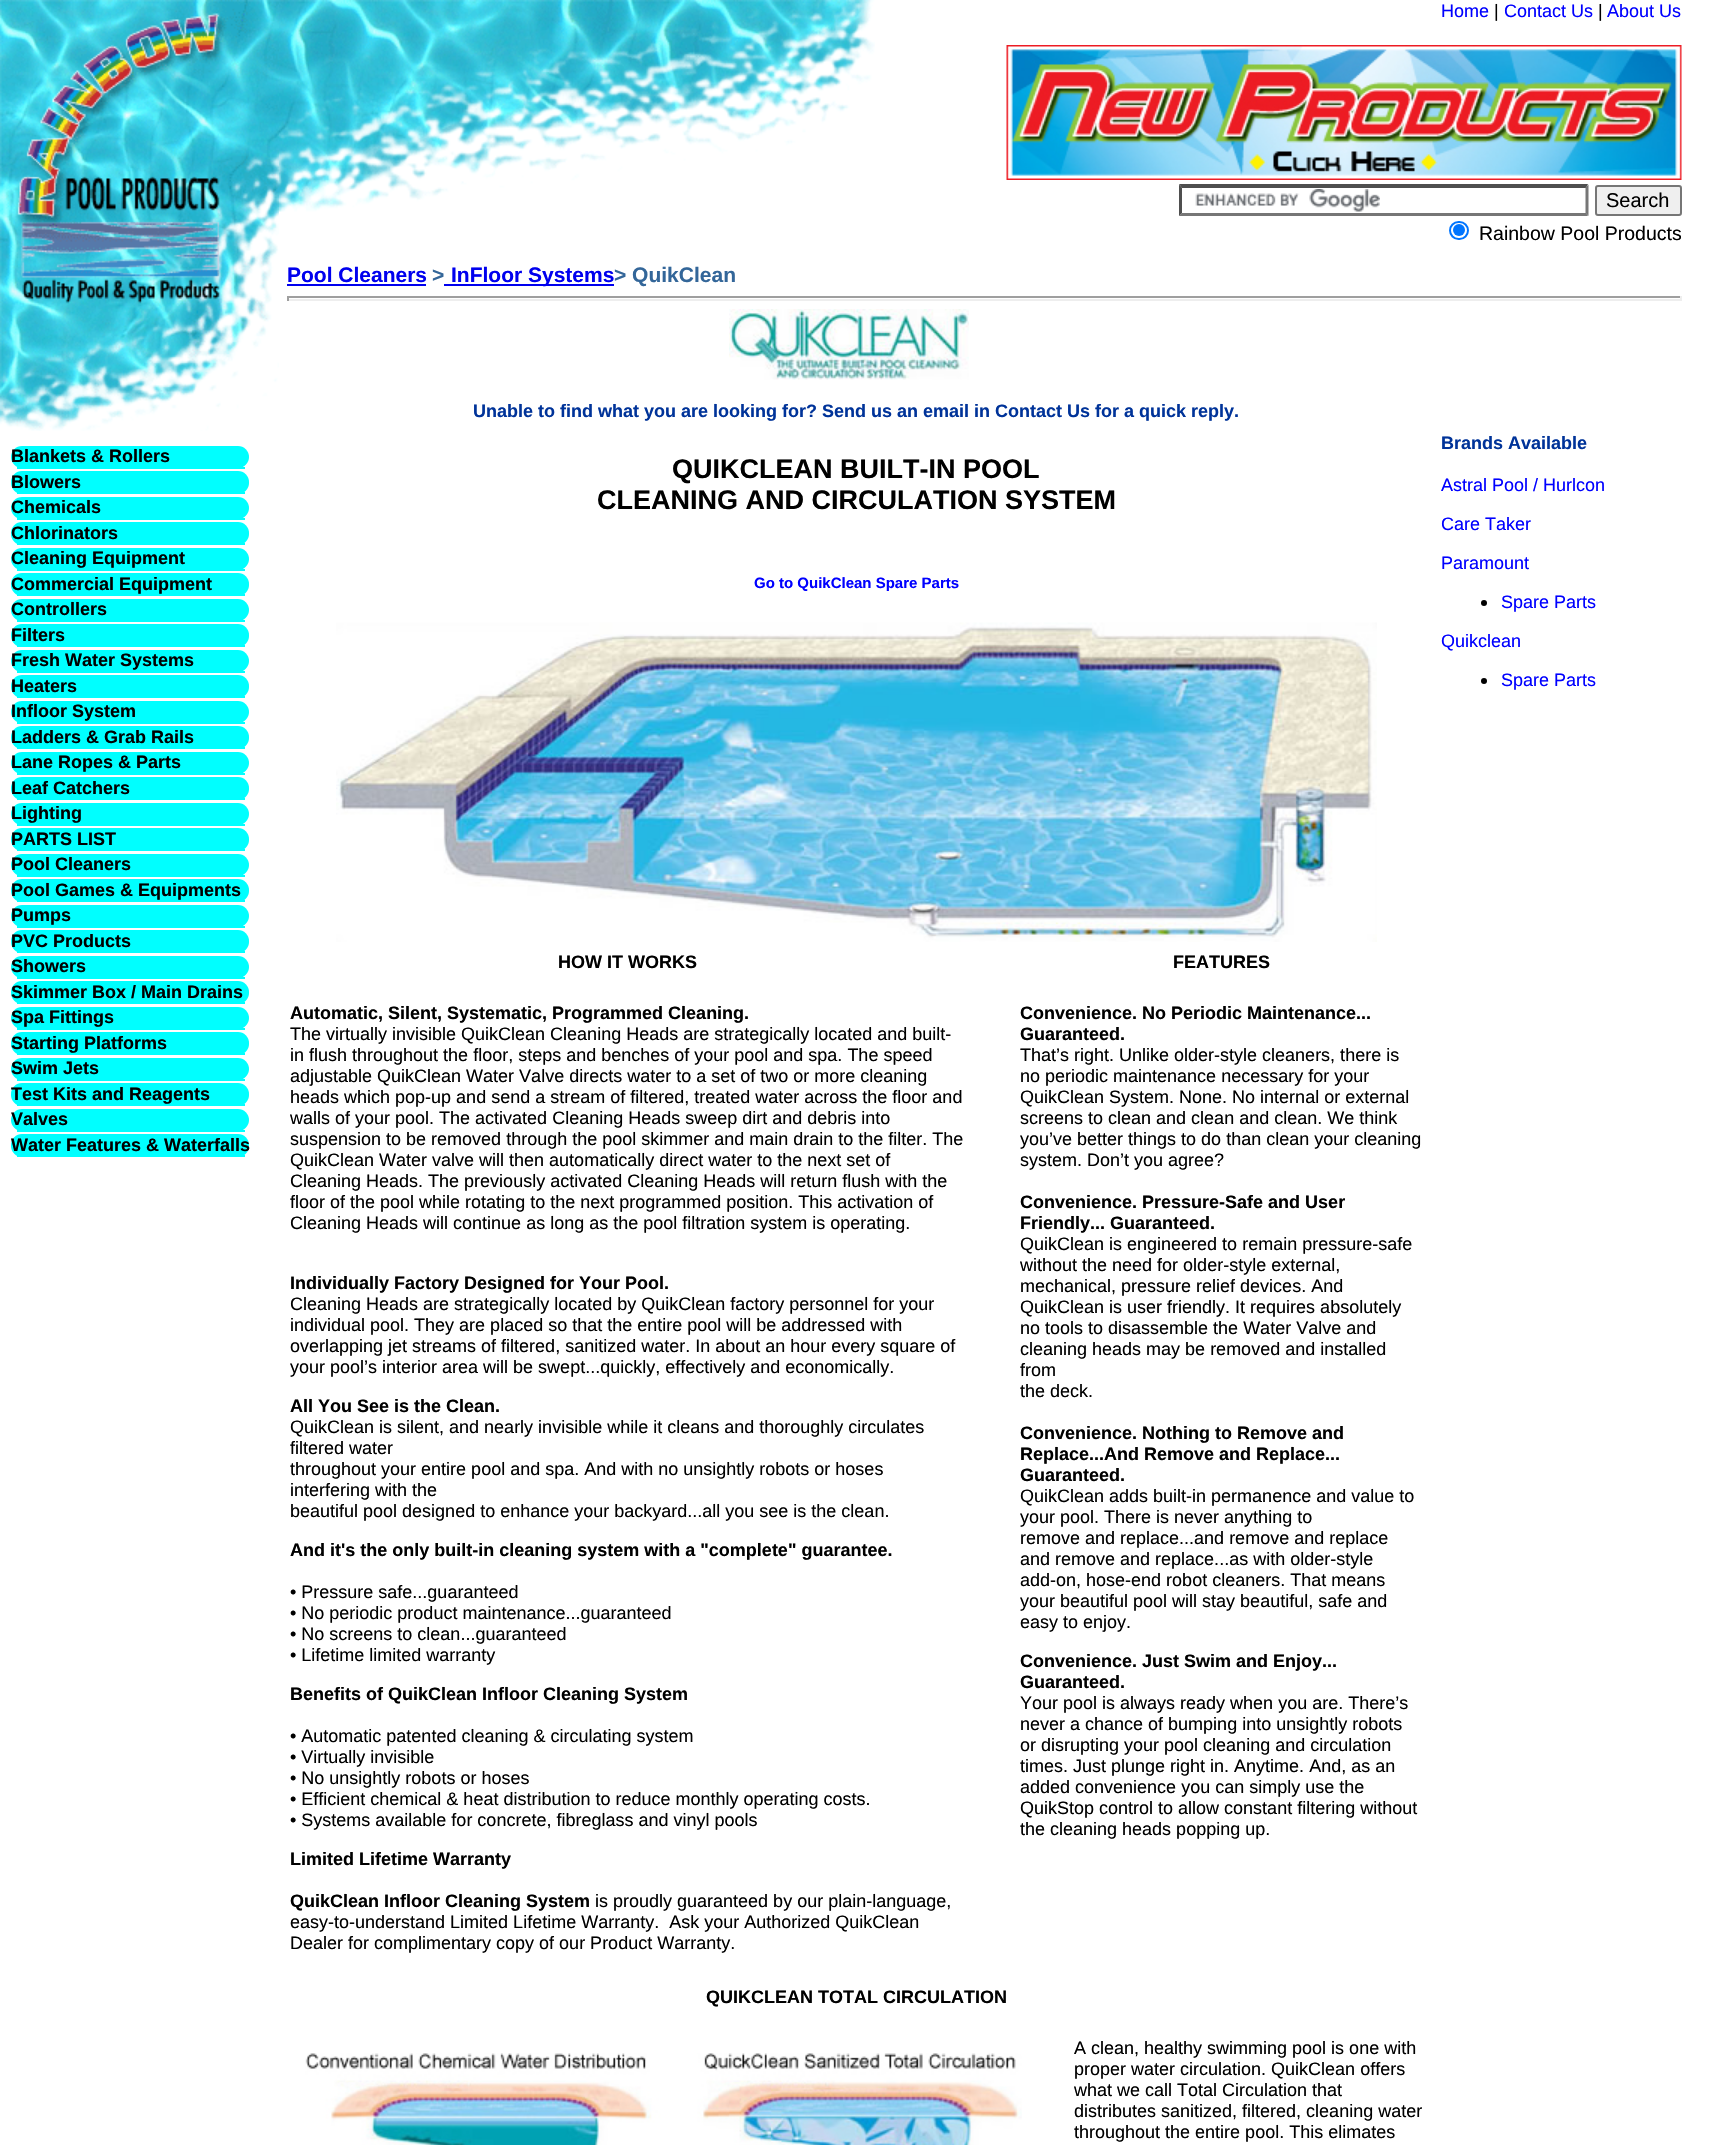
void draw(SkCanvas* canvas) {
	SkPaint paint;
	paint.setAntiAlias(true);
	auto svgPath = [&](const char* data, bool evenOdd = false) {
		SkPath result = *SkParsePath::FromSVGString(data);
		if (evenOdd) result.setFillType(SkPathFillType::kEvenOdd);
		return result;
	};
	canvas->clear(0xffffffff);
	canvas->drawImageRect(SkImages::DeferredFromEncodedData(SkData::MakeFromFileName("img1.png")), SkRect::MakeXYWH(0, 0, 279, 431), SkSamplingOptions());
	paint.setColor(0xff00ffff);
	canvas->drawRoundRect(SkRect::MakeXYWH(11, 446, 238, 22), 11, 11, paint);
	canvas->drawRect(SkRect::MakeXYWH(17, 467, 228, 2), paint);
	SkFont f1(fontMgr->matchFamilyStyle("Liberation Sans", SkFontStyle::Bold()), 18);
	f1.setSubpixel(true);
	paint.setColor(0xff000000);
	canvas->drawString("Blankets & Rollers", 11, 462, f1, paint);
	paint.setColor(0xff00ffff);
	canvas->drawRoundRect(SkRect::MakeXYWH(11, 471, 238, 23), 11, 11, paint);
	canvas->drawRect(SkRect::MakeXYWH(17, 492, 228, 2), paint);
	paint.setColor(0xff000000);
	canvas->drawString("Blowers", 11, 488, f1, paint);
	paint.setColor(0xff00ffff);
	canvas->drawRoundRect(SkRect::MakeXYWH(11, 497, 238, 22), 11, 11, paint);
	canvas->drawRect(SkRect::MakeXYWH(17, 518, 228, 2), paint);
	paint.setColor(0xff000000);
	canvas->drawString("Chemicals", 11, 513, f1, paint);
	paint.setColor(0xff00ffff);
	canvas->drawRoundRect(SkRect::MakeXYWH(11, 522, 238, 23), 11, 11, paint);
	canvas->drawRect(SkRect::MakeXYWH(17, 543, 228, 2), paint);
	paint.setColor(0xff000000);
	canvas->drawString("Chlorinators", 11, 539, f1, paint);
	paint.setColor(0xff00ffff);
	canvas->drawRoundRect(SkRect::MakeXYWH(11, 548, 238, 22), 11, 11, paint);
	canvas->drawRect(SkRect::MakeXYWH(17, 569, 228, 2), paint);
	paint.setColor(0xff000000);
	canvas->drawString("Cleaning Equipment", 11, 564, f1, paint);
	paint.setColor(0xff00ffff);
	canvas->drawRoundRect(SkRect::MakeXYWH(11, 573, 238, 23), 11, 11, paint);
	canvas->drawRect(SkRect::MakeXYWH(17, 594, 228, 2), paint);
	paint.setColor(0xff000000);
	canvas->drawString("Commercial Equipment", 11, 590, f1, paint);
	paint.setColor(0xff00ffff);
	canvas->drawRoundRect(SkRect::MakeXYWH(11, 599, 238, 22), 11, 11, paint);
	canvas->drawRect(SkRect::MakeXYWH(17, 620, 228, 2), paint);
	paint.setColor(0xff000000);
	canvas->drawString("Controllers", 11, 615, f1, paint);
	paint.setColor(0xff00ffff);
	canvas->drawRoundRect(SkRect::MakeXYWH(11, 624, 238, 23), 11, 11, paint);
	canvas->drawRect(SkRect::MakeXYWH(17, 645, 228, 2), paint);
	paint.setColor(0xff000000);
	canvas->drawString("Filters", 11, 641, f1, paint);
	paint.setColor(0xff00ffff);
	canvas->drawRoundRect(SkRect::MakeXYWH(11, 650, 238, 22), 11, 11, paint);
	canvas->drawRect(SkRect::MakeXYWH(17, 671, 228, 2), paint);
	paint.setColor(0xff000000);
	canvas->drawString("Fresh Water Systems", 11, 666, f1, paint);
	paint.setColor(0xff00ffff);
	canvas->drawRoundRect(SkRect::MakeXYWH(11, 675, 238, 23), 11, 11, paint);
	canvas->drawRect(SkRect::MakeXYWH(17, 696, 228, 2), paint);
	paint.setColor(0xff000000);
	canvas->drawString("Heaters", 11, 692, f1, paint);
	paint.setColor(0xff00ffff);
	canvas->drawRoundRect(SkRect::MakeXYWH(11, 701, 238, 22), 11, 11, paint);
	canvas->drawRect(SkRect::MakeXYWH(17, 722, 228, 2), paint);
	paint.setColor(0xff000000);
	canvas->drawString("Infloor System", 11, 717, f1, paint);
	paint.setColor(0xff00ffff);
	canvas->drawRoundRect(SkRect::MakeXYWH(11, 726, 238, 23), 11, 11, paint);
	canvas->drawRect(SkRect::MakeXYWH(17, 747, 228, 2), paint);
	paint.setColor(0xff000000);
	canvas->drawString("Ladders & Grab Rails", 11, 743, f1, paint);
	paint.setColor(0xff00ffff);
	canvas->drawRoundRect(SkRect::MakeXYWH(11, 752, 238, 22), 11, 11, paint);
	canvas->drawRect(SkRect::MakeXYWH(17, 773, 228, 2), paint);
	paint.setColor(0xff000000);
	canvas->drawString("Lane Ropes & Parts", 11, 768, f1, paint);
	paint.setColor(0xff00ffff);
	canvas->drawRoundRect(SkRect::MakeXYWH(11, 777, 238, 23), 11, 11, paint);
	canvas->drawRect(SkRect::MakeXYWH(17, 798, 228, 2), paint);
	paint.setColor(0xff000000);
	canvas->drawString("Leaf Catchers", 11, 794, f1, paint);
	paint.setColor(0xff00ffff);
	canvas->drawRoundRect(SkRect::MakeXYWH(11, 803, 238, 22), 11, 11, paint);
	canvas->drawRect(SkRect::MakeXYWH(17, 824, 228, 2), paint);
	paint.setColor(0xff000000);
	canvas->drawString("Lighting", 11, 819, f1, paint);
	paint.setColor(0xff00ffff);
	canvas->drawRoundRect(SkRect::MakeXYWH(11, 828, 238, 23), 11, 11, paint);
	canvas->drawRect(SkRect::MakeXYWH(17, 849, 228, 2), paint);
	paint.setColor(0xff000000);
	canvas->drawString("PARTS LIST", 11, 845, f1, paint);
	paint.setColor(0xff00ffff);
	canvas->drawRoundRect(SkRect::MakeXYWH(11, 854, 238, 22), 11, 11, paint);
	canvas->drawRect(SkRect::MakeXYWH(17, 875, 228, 2), paint);
	paint.setColor(0xff000000);
	canvas->drawString("Pool Cleaners", 11, 870, f1, paint);
	paint.setColor(0xff00ffff);
	canvas->drawRoundRect(SkRect::MakeXYWH(11, 879, 238, 23), 11, 11, paint);
	canvas->drawRect(SkRect::MakeXYWH(17, 900, 228, 2), paint);
	paint.setColor(0xff000000);
	canvas->drawString("Pool Games & Equipments", 11, 896, f1, paint);
	paint.setColor(0xff00ffff);
	canvas->drawRoundRect(SkRect::MakeXYWH(11, 905, 238, 22), 11, 11, paint);
	canvas->drawRect(SkRect::MakeXYWH(17, 926, 228, 2), paint);
	paint.setColor(0xff000000);
	canvas->drawString("Pumps", 11, 921, f1, paint);
	paint.setColor(0xff00ffff);
	canvas->drawRoundRect(SkRect::MakeXYWH(11, 930, 238, 23), 11, 11, paint);
	canvas->drawRect(SkRect::MakeXYWH(17, 951, 228, 2), paint);
	paint.setColor(0xff000000);
	canvas->drawString("PVC Products", 11, 947, f1, paint);
	paint.setColor(0xff00ffff);
	canvas->drawRoundRect(SkRect::MakeXYWH(11, 956, 238, 22), 11, 11, paint);
	canvas->drawRect(SkRect::MakeXYWH(17, 977, 228, 2), paint);
	paint.setColor(0xff000000);
	canvas->drawString("Showers", 11, 972, f1, paint);
	paint.setColor(0xff00ffff);
	canvas->drawRoundRect(SkRect::MakeXYWH(11, 981, 238, 23), 11, 11, paint);
	canvas->drawRect(SkRect::MakeXYWH(17, 1002, 228, 2), paint);
	paint.setColor(0xff000000);
	canvas->drawString("Skimmer Box / Main Drains", 11, 998, f1, paint);
	paint.setColor(0xff00ffff);
	canvas->drawRoundRect(SkRect::MakeXYWH(11, 1007, 238, 22), 11, 11, paint);
	canvas->drawRect(SkRect::MakeXYWH(17, 1028, 228, 2), paint);
	paint.setColor(0xff000000);
	canvas->drawString("Spa Fittings", 11, 1023, f1, paint);
	paint.setColor(0xff00ffff);
	canvas->drawRoundRect(SkRect::MakeXYWH(11, 1032, 238, 23), 11, 11, paint);
	canvas->drawRect(SkRect::MakeXYWH(17, 1053, 228, 2), paint);
	paint.setColor(0xff000000);
	canvas->drawString("Starting Platforms", 11, 1049, f1, paint);
	paint.setColor(0xff00ffff);
	canvas->drawRoundRect(SkRect::MakeXYWH(11, 1058, 238, 22), 11, 11, paint);
	canvas->drawRect(SkRect::MakeXYWH(17, 1079, 228, 2), paint);
	paint.setColor(0xff000000);
	canvas->drawString("Swim Jets", 11, 1074, f1, paint);
	paint.setColor(0xff00ffff);
	canvas->drawRoundRect(SkRect::MakeXYWH(11, 1083, 238, 23), 11, 11, paint);
	canvas->drawRect(SkRect::MakeXYWH(17, 1104, 228, 2), paint);
	paint.setColor(0xff000000);
	canvas->drawString("Test Kits and Reagents", 11, 1100, f1, paint);
	paint.setColor(0xff00ffff);
	canvas->drawRoundRect(SkRect::MakeXYWH(11, 1109, 238, 22), 11, 11, paint);
	canvas->drawRect(SkRect::MakeXYWH(17, 1130, 228, 2), paint);
	paint.setColor(0xff000000);
	canvas->drawString("Valves", 11, 1125, f1, paint);
	paint.setColor(0xff00ffff);
	canvas->drawRoundRect(SkRect::MakeXYWH(11, 1134, 238, 23), 11, 11, paint);
	canvas->drawRect(SkRect::MakeXYWH(17, 1155, 228, 2), paint);
	paint.setColor(0xff000000);
	canvas->drawString("Water Features & Waterfalls", 11, 1151, f1, paint);
	canvas->drawImageRect(SkImages::DeferredFromEncodedData(SkData::MakeFromFileName("img2.png")), SkRect::MakeXYWH(279, 0, 596, 212), SkSamplingOptions());
	SkFont f2(fontMgr->matchFamilyStyle("Liberation Sans", SkFontStyle::Normal()), 18);
	f2.setSubpixel(true);
	paint.setColor(0xff0000ff);
	canvas->drawString("Home", 1441, 17, f2, paint);
	paint.setColor(0xff000000);
	canvas->drawString("|", 1494, 17, f2, paint);
	paint.setColor(0xff0000ff);
	canvas->drawString("Contact Us", 1504, 17, f2, paint);
	paint.setColor(0xff000000);
	canvas->drawString("|", 1598, 17, f2, paint);
	paint.setColor(0xff0000ff);
	canvas->drawString("About Us", 1607, 17, f2, paint);
	canvas->drawImageRect(SkImages::DeferredFromEncodedData(SkData::MakeFromFileName("img3.png")), SkRect::MakeXYWH(1006, 45, 676, 135), SkSamplingOptions());
	canvas->drawImageRect(SkImages::DeferredFromEncodedData(SkData::MakeFromFileName("img4.png")), SkRect::MakeXYWH(1195, 189, 185, 23), SkSamplingOptions());
	paint.setColor(0xff4f4f4f);
	canvas->drawPath(svgPath("M1179 184H1588L1586 188H1182Z"), paint);
	paint.setColor(0xff767676);
	canvas->drawPath(svgPath("M1588.5 184.5V216L1585.5 213V187.5Z"), paint);
	canvas->drawPath(svgPath("M1588 216H1179L1182 213H1586Z"), paint);
	paint.setColor(0xff4f4f4f);
	canvas->drawPath(svgPath("M1179 216V184.5L1182 187.5V213Z"), paint);
	paint.setColor(0xffefefef);
	canvas->drawRoundRect(SkRect::MakeXYWH(1596, 186, 85, 29), 2, 2, paint);
	paint.setStroke(true);
	paint.setStrokeWidth(2);
	paint.setColor(0xff767676);
	canvas->drawRoundRect(SkRect::MakeXYWH(1596, 186, 85, 29), 2, 2, paint);
	SkFont f3(fontMgr->matchFamilyStyle("Liberation Sans", SkFontStyle::Normal()), 20);
	f3.setSubpixel(true);
	paint.setStroke(false);
	paint.setColor(0xff000000);
	canvas->drawString("Search", 1606, 207, f3, paint);
	paint.setStroke(true);
	paint.setColor(0xff0075ff);
	canvas->drawRoundRect(SkRect::MakeXYWH(1450, 222, 18, 17), 8.5, 8.5, paint);
	paint.setStroke(false);
	canvas->drawCircle(1459, 230, 6, paint);
	SkFont f4(fontMgr->matchFamilyStyle("Liberation Sans", SkFontStyle::Normal()), 19.5);
	f4.setSubpixel(true);
	paint.setColor(0xff000000);
	canvas->drawString("Rainbow Pool Products", 1479, 240, f4, paint);
	SkFont f5(fontMgr->matchFamilyStyle("Liberation Sans", SkFontStyle::Bold()), 21);
	f5.setSubpixel(true);
	paint.setColor(0xff0000ee);
	canvas->drawString("Pool Cleaners", 287, 282, f5, paint);
	canvas->drawRect(SkRect::MakeXYWH(287, 284, 139, 2), paint);
	paint.setColor(0xff336699);
	canvas->drawString(">", 432, 282, f5, paint);
	paint.setColor(0xff0000ee);
	canvas->drawRect(SkRect::MakeXYWH(444, 284, 170, 2), paint);
	canvas->drawString("InFloor Systems", 451, 282, f5, paint);
	paint.setColor(0xff336699);
	canvas->drawString("> QuikClean", 614, 282, f5, paint);
	paint.setColor(0xff9f9f9f);
	canvas->drawRect(SkRect::MakeXYWH(287, 296, 1395, 2), paint);
	paint.setColor(0xffeeeeee);
	canvas->drawRect(SkRect::MakeXYWH(1680, 296, 2, 5), paint);
	canvas->drawRect(SkRect::MakeXYWH(287, 299, 1395, 2), paint);
	paint.setColor(0xff9f9f9f);
	canvas->drawRect(SkRect::MakeXYWH(287, 296, 2, 5), paint);
	canvas->drawImageRect(SkImages::DeferredFromEncodedData(SkData::MakeFromFileName("img5.png")), SkRect::MakeXYWH(729, 309, 240, 71), SkSamplingOptions());
	paint.setColor(0xff003399);
	canvas->drawString("Unable to find what you are looking for? Send us an email in Contact Us for a quick reply.", 473, 417, f1, paint);
	canvas->drawString("Brands Available", 1441, 449, f1, paint);
	paint.setColor(0xff0000ff);
	canvas->drawString("Astral Pool / Hurlcon", 1441, 491, f2, paint);
	canvas->drawString("Care Taker", 1441, 530, f2, paint);
	canvas->drawString("Paramount", 1441, 569, f2, paint);
	paint.setColor(0xff000000);
	canvas->drawCircle(1484, 603, 3, paint);
	paint.setColor(0xff0000ff);
	canvas->drawString("Spare Parts", 1501, 608, f2, paint);
	canvas->drawString("Quikclean", 1441, 647, f2, paint);
	paint.setColor(0xff000000);
	canvas->drawCircle(1484, 681, 3, paint);
	paint.setColor(0xff0000ff);
	canvas->drawString("Spare Parts", 1501, 686, f2, paint);
	SkFont f6(fontMgr->matchFamilyStyle("Liberation Sans", SkFontStyle::Bold()), 27);
	f6.setSubpixel(true);
	paint.setColor(0xff000000);
	canvas->drawString("QUIKCLEAN BUILT-IN POOL", 672, 478, f6, paint);
	canvas->drawString("CLEANING AND CIRCULATION SYSTEM", 597, 509, f6, paint);
	SkFont f7(fontMgr->matchFamilyStyle("Liberation Sans", SkFontStyle::Bold()), 15);
	f7.setSubpixel(true);
	paint.setColor(0xff0000ff);
	canvas->drawString("Go to QuikClean Spare Parts", 754, 588, f7, paint);
	canvas->drawImageRect(SkImages::DeferredFromEncodedData(SkData::MakeFromFileName("img6.png")), SkRect::MakeXYWH(336, 622, 1041, 320), SkSamplingOptions());
	paint.setColor(0xff000000);
	canvas->drawString("HOW IT WORKS", 558, 968, f1, paint);
	canvas->drawString("FEATURES", 1173, 968, f1, paint);
	canvas->drawString("Automatic, Silent, Systematic, Programmed Cleaning.", 290, 1019, f1, paint);
	canvas->drawString("The virtually invisible QuikClean Cleaning Heads are strategically located and built-", 290, 1040, f2, paint);
	canvas->drawString("in flush throughout the floor, steps and benches of your pool and spa. The speed", 290, 1061, f2, paint);
	canvas->drawString("adjustable QuikClean Water Valve directs water to a set of two or more cleaning", 290, 1082, f2, paint);
	canvas->drawString("heads which pop-up and send a stream of filtered, treated water across the floor and", 290, 1103, f2, paint);
	canvas->drawString("walls of your pool. The activated Cleaning Heads sweep dirt and debris into", 290, 1124, f2, paint);
	canvas->drawString("suspension to be removed through the pool skimmer and main drain to the filter. The", 290, 1145, f2, paint);
	canvas->drawString("QuikClean Water valve will then automatically direct water to the next set of", 290, 1166, f2, paint);
	canvas->drawString("Cleaning Heads. The previously activated Cleaning Heads will return flush with the", 290, 1187, f2, paint);
	canvas->drawString("floor of the pool while rotating to the next programmed position. This activation of", 290, 1208, f2, paint);
	canvas->drawString("Cleaning Heads will continue as long as the pool filtration system is operating.", 290, 1229, f2, paint);
	canvas->drawString("Individually Factory Designed for Your Pool.", 290, 1289, f1, paint);
	canvas->drawString("Cleaning Heads are strategically located by QuikClean factory personnel for your", 290, 1310, f2, paint);
	canvas->drawString("individual pool. They are placed so that the entire pool will be addressed with", 290, 1331, f2, paint);
	canvas->drawString("overlapping jet streams of filtered, sanitized water. In about an hour every square of", 290, 1352, f2, paint);
	canvas->drawString("your pool’s interior area will be swept...quickly, effectively and economically.", 290, 1373, f2, paint);
	canvas->drawString("All You See is the Clean.", 290, 1412, f1, paint);
	canvas->drawString("QuikClean is silent, and nearly invisible while it cleans and thoroughly circulates", 290, 1433, f2, paint);
	canvas->drawString("filtered water", 290, 1454, f2, paint);
	canvas->drawString("throughout your entire pool and spa. And with no unsightly robots or hoses", 290, 1475, f2, paint);
	canvas->drawString("interfering with the", 290, 1496, f2, paint);
	canvas->drawString("beautiful pool designed to enhance your backyard...all you see is the clean.", 290, 1517, f2, paint);
	canvas->drawString("And it's the only built-in cleaning system with a \"complete\" guarantee.", 290, 1556, f1, paint);
	canvas->drawString("• Pressure safe...guaranteed", 290, 1598, f2, paint);
	canvas->drawString("• No periodic product maintenance...guaranteed", 290, 1619, f2, paint);
	canvas->drawString("• No screens to clean...guaranteed", 290, 1640, f2, paint);
	canvas->drawString("• Lifetime limited warranty", 290, 1661, f2, paint);
	canvas->drawString("Benefits of QuikClean Infloor Cleaning System", 290, 1700, f1, paint);
	canvas->drawString("• Automatic patented cleaning & circulating system", 290, 1742, f2, paint);
	canvas->drawString("• Virtually invisible", 290, 1763, f2, paint);
	canvas->drawString("• No unsightly robots or hoses", 290, 1784, f2, paint);
	canvas->drawString("• Efficient chemical & heat distribution to reduce monthly operating costs.", 290, 1805, f2, paint);
	canvas->drawString("• Systems available for concrete, fibreglass and vinyl pools", 290, 1826, f2, paint);
	canvas->drawString("Limited Lifetime Warranty", 290, 1865, f1, paint);
	canvas->drawString("QuikClean Infloor Cleaning System", 290, 1907, f1, paint);
	canvas->drawString("is proudly guaranteed by our plain-language,", 595, 1907, f2, paint);
	canvas->drawString("easy-to-understand Limited Lifetime Warranty.  Ask your Authorized QuikClean", 290, 1928, f2, paint);
	canvas->drawString("Dealer for complimentary copy of our Product Warranty.", 290, 1949, f2, paint);
	canvas->drawString("Convenience. No Periodic Maintenance...", 1020, 1019, f1, paint);
	canvas->drawString("Guaranteed.", 1020, 1040, f1, paint);
	canvas->drawString("That’s right. Unlike older-style cleaners, there is", 1020, 1061, f2, paint);
	canvas->drawString("no periodic maintenance necessary for your", 1020, 1082, f2, paint);
	canvas->drawString("QuikClean System. None. No internal or external", 1020, 1103, f2, paint);
	canvas->drawString("screens to clean and clean and clean. We think", 1020, 1124, f2, paint);
	canvas->drawString("you’ve better things to do than clean your cleaning", 1020, 1145, f2, paint);
	canvas->drawString("system. Don’t you agree?", 1020, 1166, f2, paint);
	canvas->drawString("Convenience. Pressure-Safe and User", 1020, 1208, f1, paint);
	canvas->drawString("Friendly... Guaranteed.", 1020, 1229, f1, paint);
	canvas->drawString("QuikClean is engineered to remain pressure-safe", 1020, 1250, f2, paint);
	canvas->drawString("without the need for older-style external,", 1020, 1271, f2, paint);
	canvas->drawString("mechanical, pressure relief devices. And", 1020, 1292, f2, paint);
	canvas->drawString("QuikClean is user friendly. It requires absolutely", 1020, 1313, f2, paint);
	canvas->drawString("no tools to disassemble the Water Valve and", 1020, 1334, f2, paint);
	canvas->drawString("cleaning heads may be removed and installed", 1020, 1355, f2, paint);
	canvas->drawString("from", 1020, 1376, f2, paint);
	canvas->drawString("the deck.", 1020, 1397, f2, paint);
	canvas->drawString("Convenience. Nothing to Remove and", 1020, 1439, f1, paint);
	canvas->drawString("Replace...And Remove and Replace...", 1020, 1460, f1, paint);
	canvas->drawString("Guaranteed.", 1020, 1481, f1, paint);
	canvas->drawString("QuikClean adds built-in permanence and value to", 1020, 1502, f2, paint);
	canvas->drawString("your pool. There is never anything to", 1020, 1523, f2, paint);
	canvas->drawString("remove and replace...and remove and replace", 1020, 1544, f2, paint);
	canvas->drawString("and remove and replace...as with older-style", 1020, 1565, f2, paint);
	canvas->drawString("add-on, hose-end robot cleaners. That means", 1020, 1586, f2, paint);
	canvas->drawString("your beautiful pool will stay beautiful, safe and", 1020, 1607, f2, paint);
	canvas->drawString("easy to enjoy.", 1020, 1628, f2, paint);
	canvas->drawString("Convenience. Just Swim and Enjoy...", 1020, 1667, f1, paint);
	canvas->drawString("Guaranteed.", 1020, 1688, f1, paint);
	canvas->drawString("Your pool is always ready when you are. There’s", 1020, 1709, f2, paint);
	canvas->drawString("never a chance of bumping into unsightly robots", 1020, 1730, f2, paint);
	canvas->drawString("or disrupting your pool cleaning and circulation", 1020, 1751, f2, paint);
	canvas->drawString("times. Just plunge right in. Anytime. And, as an", 1020, 1772, f2, paint);
	canvas->drawString("added convenience you can simply use the", 1020, 1793, f2, paint);
	canvas->drawString("QuikStop control to allow constant filtering without", 1020, 1814, f2, paint);
	canvas->drawString("the cleaning heads popping up.", 1020, 1835, f2, paint);
	canvas->drawString("QUIKCLEAN TOTAL CIRCULATION", 706, 2003, f1, paint);
	canvas->drawImageRect(SkImages::DeferredFromEncodedData(SkData::MakeFromFileName("img7.png")), SkRect::MakeXYWH(305, 2053, 717, 92), SkSamplingOptions());
	canvas->drawString("A clean, healthy swimming pool is one with", 1074, 2054, f2, paint);
	canvas->drawString("proper water circulation. QuikClean offers", 1074, 2075, f2, paint);
	canvas->drawString("what we call Total Circulation that", 1074, 2096, f2, paint);
	canvas->drawString("distributes sanitized, filtered, cleaning water", 1074, 2117, f2, paint);
	canvas->drawString("throughout the entire pool. This elimates", 1074, 2138, f2, paint);
}
